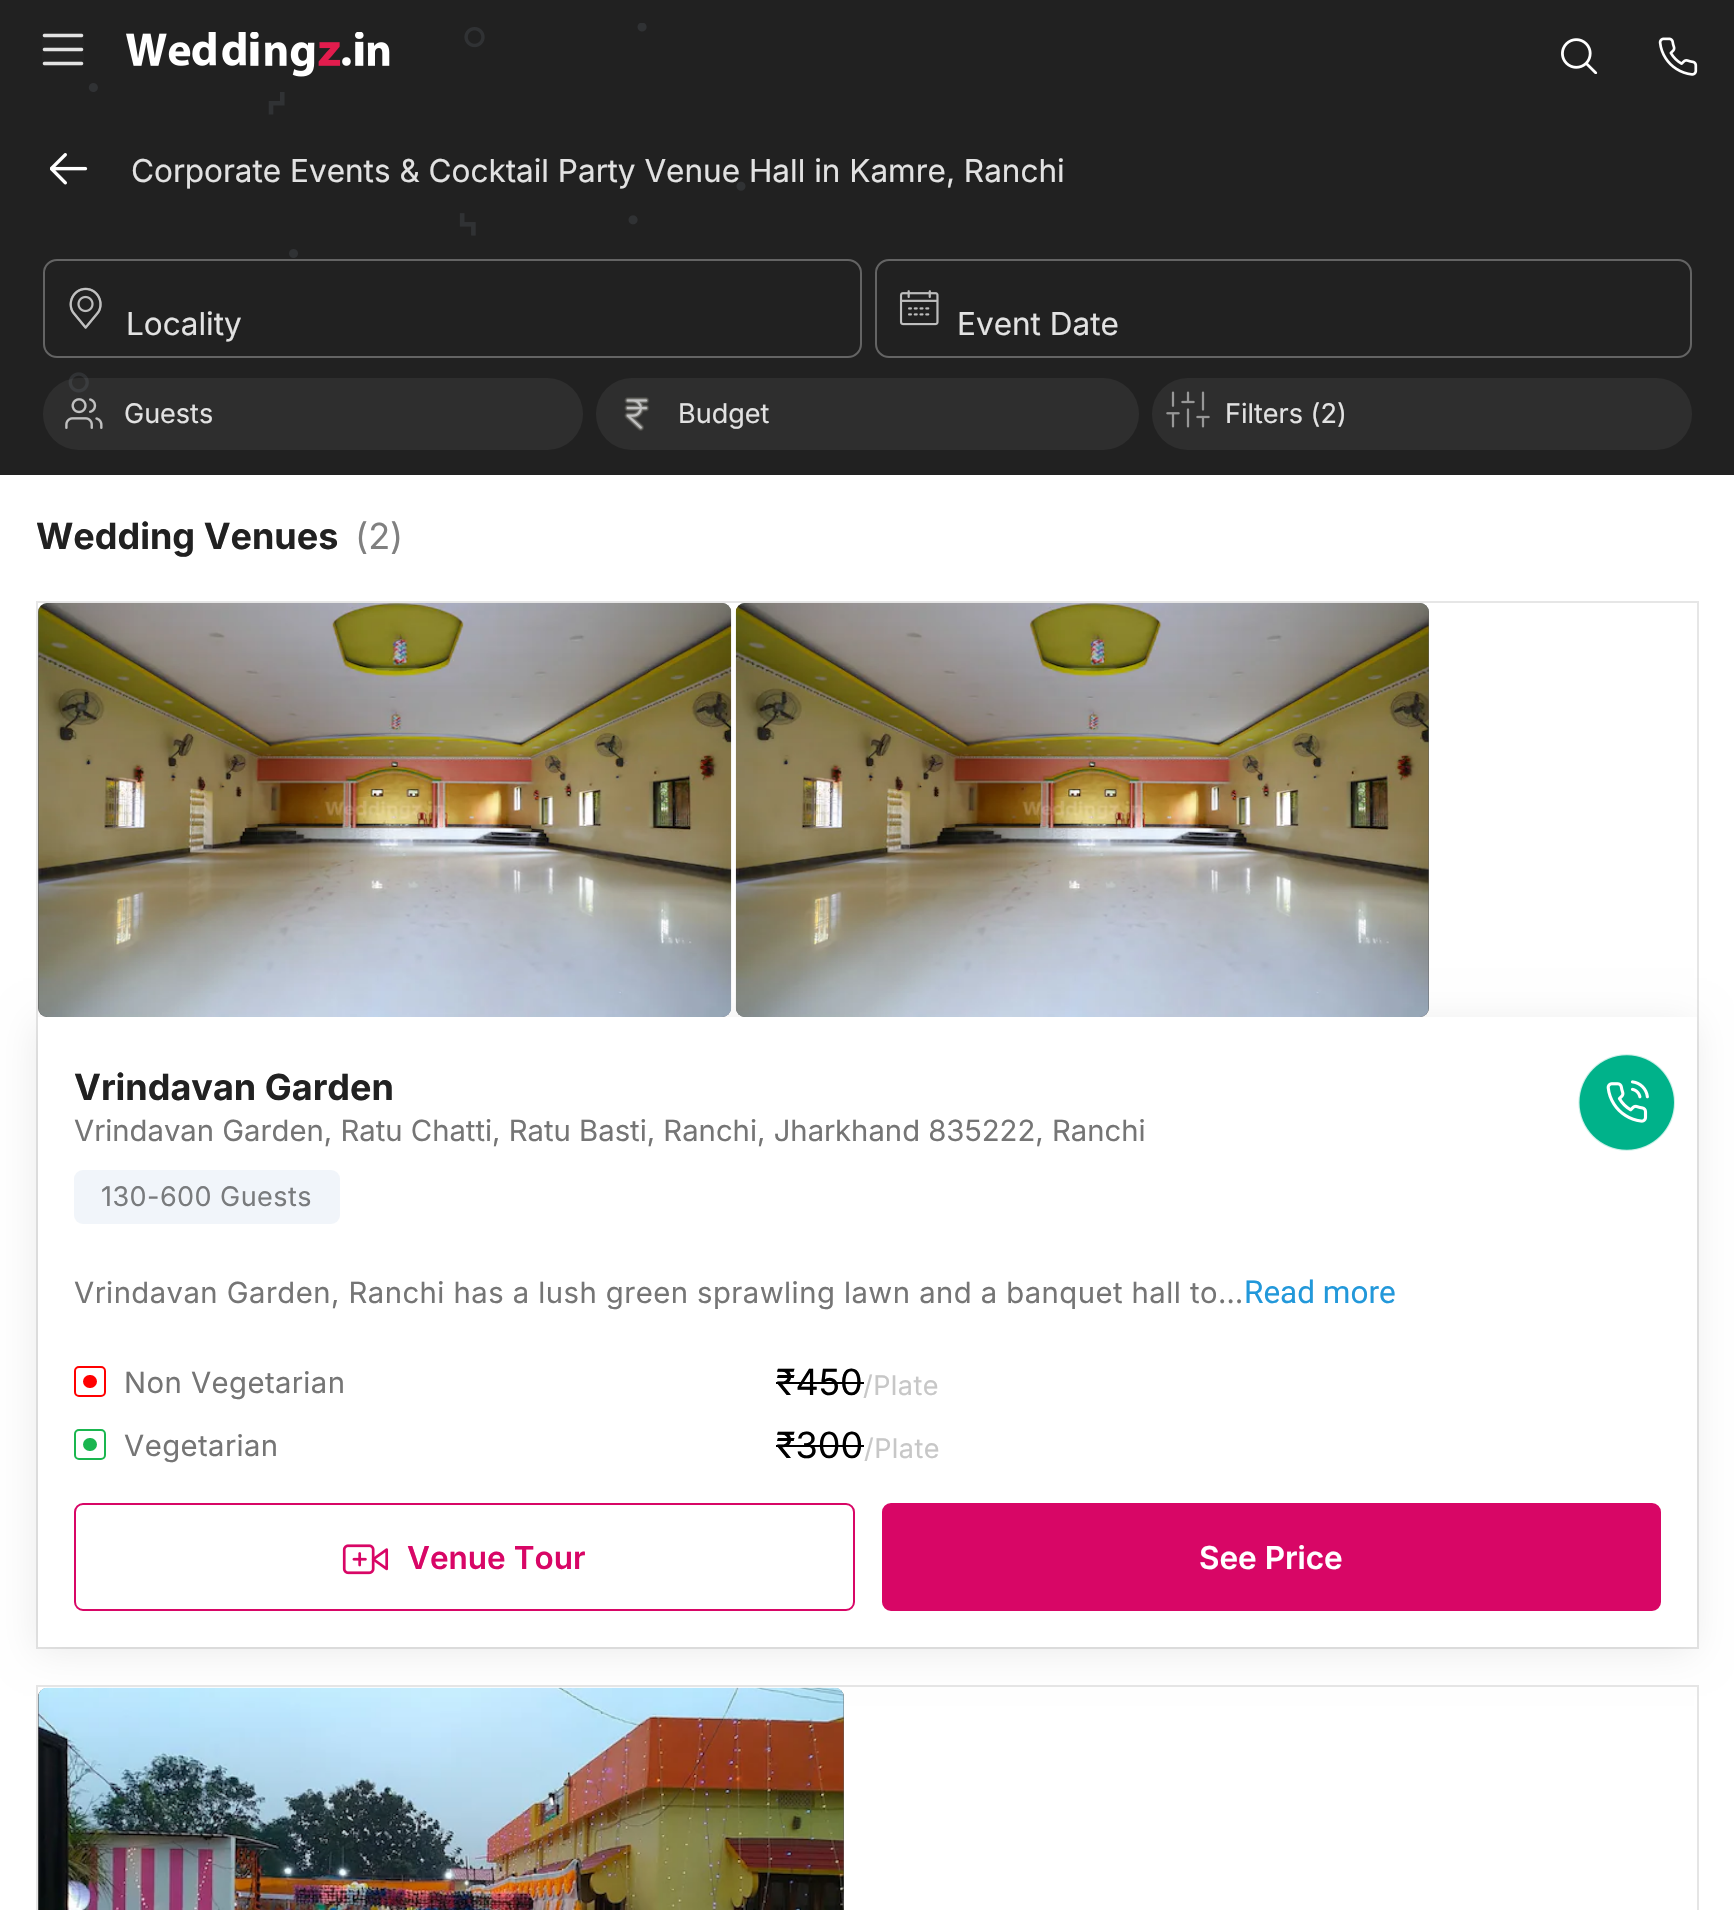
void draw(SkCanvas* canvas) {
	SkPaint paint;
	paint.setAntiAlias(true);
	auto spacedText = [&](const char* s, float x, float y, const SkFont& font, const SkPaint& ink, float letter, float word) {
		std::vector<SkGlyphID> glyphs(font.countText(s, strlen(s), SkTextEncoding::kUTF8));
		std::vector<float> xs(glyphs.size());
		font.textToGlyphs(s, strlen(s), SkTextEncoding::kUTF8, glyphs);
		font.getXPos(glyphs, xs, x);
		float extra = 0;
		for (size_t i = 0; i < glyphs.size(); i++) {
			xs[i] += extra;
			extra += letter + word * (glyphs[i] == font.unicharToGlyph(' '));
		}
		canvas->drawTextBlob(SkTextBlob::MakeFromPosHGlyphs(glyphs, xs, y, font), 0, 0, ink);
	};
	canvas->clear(0xffffffff);
	paint.setColor(0xff212121);
	canvas->drawRect(SkRect::MakeXYWH(0, 0, 1734, 108), paint);
	canvas->drawImageRect(SkImages::DeferredFromEncodedData(SkData::MakeFromFileName("img1.png")), SkRect::MakeXYWH(42, 33, 42, 33), SkSamplingOptions());
	canvas->drawImageRect(SkImages::DeferredFromEncodedData(SkData::MakeFromFileName("img2.png")), SkRect::MakeXYWH(126, 32, 264, 45), SkSamplingOptions());
	canvas->drawImageRect(SkImages::DeferredFromEncodedData(SkData::MakeFromFileName("img3.png")), SkRect::MakeXYWH(1561, 38, 37, 36), SkSamplingOptions());
	canvas->drawImageRect(SkImages::DeferredFromEncodedData(SkData::MakeFromFileName("img4.png")), SkRect::MakeXYWH(1658, 37, 40, 39), SkSamplingOptions());
	canvas->drawRect(SkRect::MakeXYWH(0, 108, 1734, 367), paint);
	canvas->drawImageRect(SkImages::DeferredFromEncodedData(SkData::MakeFromFileName("img6.png")), SkRect::MakeXYWH(50, 153, 38, 32), SkSamplingOptions());
	SkFont f1(fontMgr->matchFamilyStyle("Inter", SkFontStyle::Normal()), 31.5);
	f1.setSubpixel(true);
	paint.setColor(0xffe2e2e2);
	canvas->drawString("Corporate Events & Cocktail Party Venue Hall in Kamre, Ranchi", 131, 182, f1, paint);
	paint.setStroke(true);
	paint.setStrokeWidth(2);
	paint.setColor(0xff646464);
	canvas->drawRoundRect(SkRect::MakeXYWH(44, 260, 817, 97), 13, 13, paint);
	canvas->drawImageRect(SkImages::DeferredFromEncodedData(SkData::MakeFromFileName("img7.png")), SkRect::MakeXYWH(69, 287, 33, 42), SkSamplingOptions());
	paint.setStroke(false);
	paint.setColor(0xffe2e2e2);
	canvas->drawString("Locality", 126, 335, f1, paint);
	paint.setColor(0xff2e2e2e);
	canvas->drawRoundRect(SkRect::MakeXYWH(43, 378, 540, 72), 36, 36, paint);
	canvas->drawRoundRect(SkRect::MakeXYWH(596, 378, 543, 72), 36, 36, paint);
	canvas->drawImageRect(SkImages::DeferredFromEncodedData(SkData::MakeFromFileName("img5.png")), SkRect::MakeXYWH(68, 23, 678, 370), SkSamplingOptions());
	paint.setStroke(true);
	paint.setColor(0xff646464);
	canvas->drawRoundRect(SkRect::MakeXYWH(876, 260, 815, 97), 13, 13, paint);
	canvas->drawImageRect(SkImages::DeferredFromEncodedData(SkData::MakeFromFileName("img8.png")), SkRect::MakeXYWH(899, 290, 40, 36), SkSamplingOptions());
	paint.setStroke(false);
	paint.setColor(0xffe2e2e2);
	canvas->drawString("Event Date", 957, 335, f1, paint);
	canvas->drawImageRect(SkImages::DeferredFromEncodedData(SkData::MakeFromFileName("img9.png")), SkRect::MakeXYWH(65, 398, 38, 31), SkSamplingOptions());
	SkFont f2(fontMgr->matchFamilyStyle("Inter", SkFontStyle::Normal()), 27);
	f2.setSubpixel(true);
	canvas->drawString("Guests", 124, 423, f2, paint);
	canvas->drawImageRect(SkImages::DeferredFromEncodedData(SkData::MakeFromFileName("img10.png")), SkRect::MakeXYWH(624, 397, 26, 34), SkSamplingOptions());
	canvas->drawString("Budget", 678, 423, f2, paint);
	paint.setColor(0xff2e2e2e);
	canvas->drawRoundRect(SkRect::MakeXYWH(1152, 378, 540, 72), 36, 36, paint);
	canvas->drawImageRect(SkImages::DeferredFromEncodedData(SkData::MakeFromFileName("img11.png")), SkRect::MakeXYWH(1166, 391, 44, 37), SkSamplingOptions());
	paint.setColor(0xffe2e2e2);
	canvas->drawString("Filters (2)", 1225, 423, f2, paint);
	SkFont f3(fontMgr->matchFamilyStyle("Inter", SkFontStyle::Bold()), 36);
	f3.setSubpixel(true);
	paint.setColor(0xff212121);
	canvas->drawString("Wedding Venues", 36, 549, f3, paint);
	SkFont f4(fontMgr->matchFamilyStyle("Inter", SkFontStyle::Normal()), 36);
	f4.setSubpixel(true);
	paint.setColor(0xff808080);
	canvas->drawString("(2)", 355, 549, f4, paint);
	paint.setStroke(true);
	paint.setColor(0xffe6e6e6);
	canvas->drawRect(SkRect::MakeXYWH(37, 602, 1661, 1046), paint);
	paint.setStroke(false);
	paint.setColor(0x14000000);
	paint.setMaskFilter(SkMaskFilter::MakeBlur(kNormal_SkBlurStyle, 18));
	canvas->drawRect(SkRect::MakeXYWH(36, 1022, 1658, 630), paint);
	paint.setMaskFilter(nullptr);
	paint.setColor(0x9e000000);
	canvas->drawRoundRect(SkRect::MakeXYWH(38, 603, 693, 414), 9, 9, paint);
	canvas->drawImageRect(SkImages::DeferredFromEncodedData(SkData::MakeFromFileName("img12.png")), SkRect::MakeXYWH(38, 603, 694, 414), SkSamplingOptions());
	canvas->drawRoundRect(SkRect::MakeXYWH(736, 603, 693, 414), 9, 9, paint);
	canvas->drawImageRect(SkImages::DeferredFromEncodedData(SkData::MakeFromFileName("img13.png")), SkRect::MakeXYWH(735, 603, 694, 414), SkSamplingOptions());
	paint.setColor(0xffffffff);
	canvas->drawRect(SkRect::MakeXYWH(38, 1017, 1659, 630), paint);
	paint.setColor(0xff212121);
	canvas->drawString("Vrindavan Garden", 74, 1100, f3, paint);
	canvas->drawImageRect(SkImages::DeferredFromEncodedData(SkData::MakeFromFileName("img14.png")), SkRect::MakeXYWH(1578, 1054, 97, 97), SkSamplingOptions());
	SkFont f5(fontMgr->matchFamilyStyle("Inter", SkFontStyle::Normal()), 29.25);
	f5.setSubpixel(true);
	paint.setColor(0xff757575);
	canvas->drawString("Vrindavan Garden, Ratu Chatti, Ratu Basti, Ranchi, Jharkhand 835222, Ranchi", 74, 1141, f5, paint);
	paint.setColor(0xfff1f5fa);
	canvas->drawRoundRect(SkRect::MakeXYWH(74, 1170, 266, 54), 9, 9, paint);
	paint.setColor(0xff797b7d);
	spacedText("130-600 Guests", 101, 1206, f2, paint, 0.45, 0);
	paint.setColor(0xff757575);
	spacedText("Vrindavan Garden, Ranchi has a lush green sprawling lawn and a banquet hall to…", 74, 1303, f5, paint, 0.45, 0);
	SkFont f6(fontMgr->matchFamilyStyle("Roboto", SkFontStyle::Normal()), 31.5);
	f6.setSubpixel(true);
	paint.setColor(0xff2298da);
	canvas->drawString("Read more", 1244, 1303, f6, paint);
	paint.setStroke(true);
	paint.setColor(0xffff0000);
	canvas->drawRoundRect(SkRect::MakeXYWH(75, 1367, 30, 29), 4, 4, paint);
	paint.setStroke(false);
	canvas->drawRoundRect(SkRect::MakeXYWH(83, 1375, 14, 13), 6.5, 6.5, paint);
	paint.setColor(0xff757575);
	spacedText("Non Vegetarian", 124, 1393, f5, paint, 0.45, 0);
	paint.setColor(0xff000000);
	canvas->drawString("₹450", 776, 1395, f4, paint);
	canvas->drawRect(SkRect::MakeXYWH(776, 1382, 88, 2), paint);
	paint.setColor(0xffc7c7c7);
	spacedText("/Plate", 863, 1395, f2, paint, 0.45, 0);
	paint.setStroke(true);
	paint.setColor(0xff1ab64f);
	canvas->drawRoundRect(SkRect::MakeXYWH(75, 1430, 30, 29), 4, 4, paint);
	paint.setStroke(false);
	canvas->drawRoundRect(SkRect::MakeXYWH(83, 1438, 14, 13), 6.5, 6.5, paint);
	paint.setColor(0xff757575);
	spacedText("Vegetarian", 124, 1456, f5, paint, 0.45, 0);
	paint.setColor(0xff000000);
	canvas->drawString("₹300", 776, 1458, f4, paint);
	canvas->drawRect(SkRect::MakeXYWH(776, 1445, 88, 2), paint);
	paint.setColor(0xffc7c7c7);
	spacedText("/Plate", 864, 1458, f2, paint, 0.45, 0);
	paint.setStroke(true);
	paint.setColor(0xffd80666);
	canvas->drawRoundRect(SkRect::MakeXYWH(75, 1504, 779, 106), 8, 8, paint);
	canvas->drawImageRect(SkImages::DeferredFromEncodedData(SkData::MakeFromFileName("img15.png")), SkRect::MakeXYWH(342, 1544, 47, 31), SkSamplingOptions());
	SkFont f7(fontMgr->matchFamilyStyle("Inter", SkFontStyle(600, SkFontStyle::kNormal_Width, SkFontStyle::kUpright_Slant)), 31.5);
	f7.setSubpixel(true);
	paint.setStroke(false);
	canvas->drawString("Venue Tour", 407, 1569, f7, paint);
	canvas->drawRoundRect(SkRect::MakeXYWH(883, 1504, 777, 106), 8, 8, paint);
	paint.setStroke(true);
	canvas->drawRoundRect(SkRect::MakeXYWH(883, 1504, 777, 106), 8, 8, paint);
	paint.setStroke(false);
	paint.setColor(0xffffffff);
	canvas->drawString("See Price", 1199, 1569, f7, paint);
	paint.setStroke(true);
	paint.setColor(0xffe5e5e5);
	canvas->drawRect(SkRect::MakeXYWH(37, 1686, 1661, 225), paint);
	paint.setStroke(false);
	paint.setColor(0xff616161);
	canvas->drawRoundRect(SkRect::MakeXYWH(38, 1688, 806, 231), 9, 9, paint);
	canvas->drawImageRect(SkImages::DeferredFromEncodedData(SkData::MakeFromFileName("img16.png")), SkRect::MakeXYWH(38, 1687, 806, 223), SkSamplingOptions());
}
